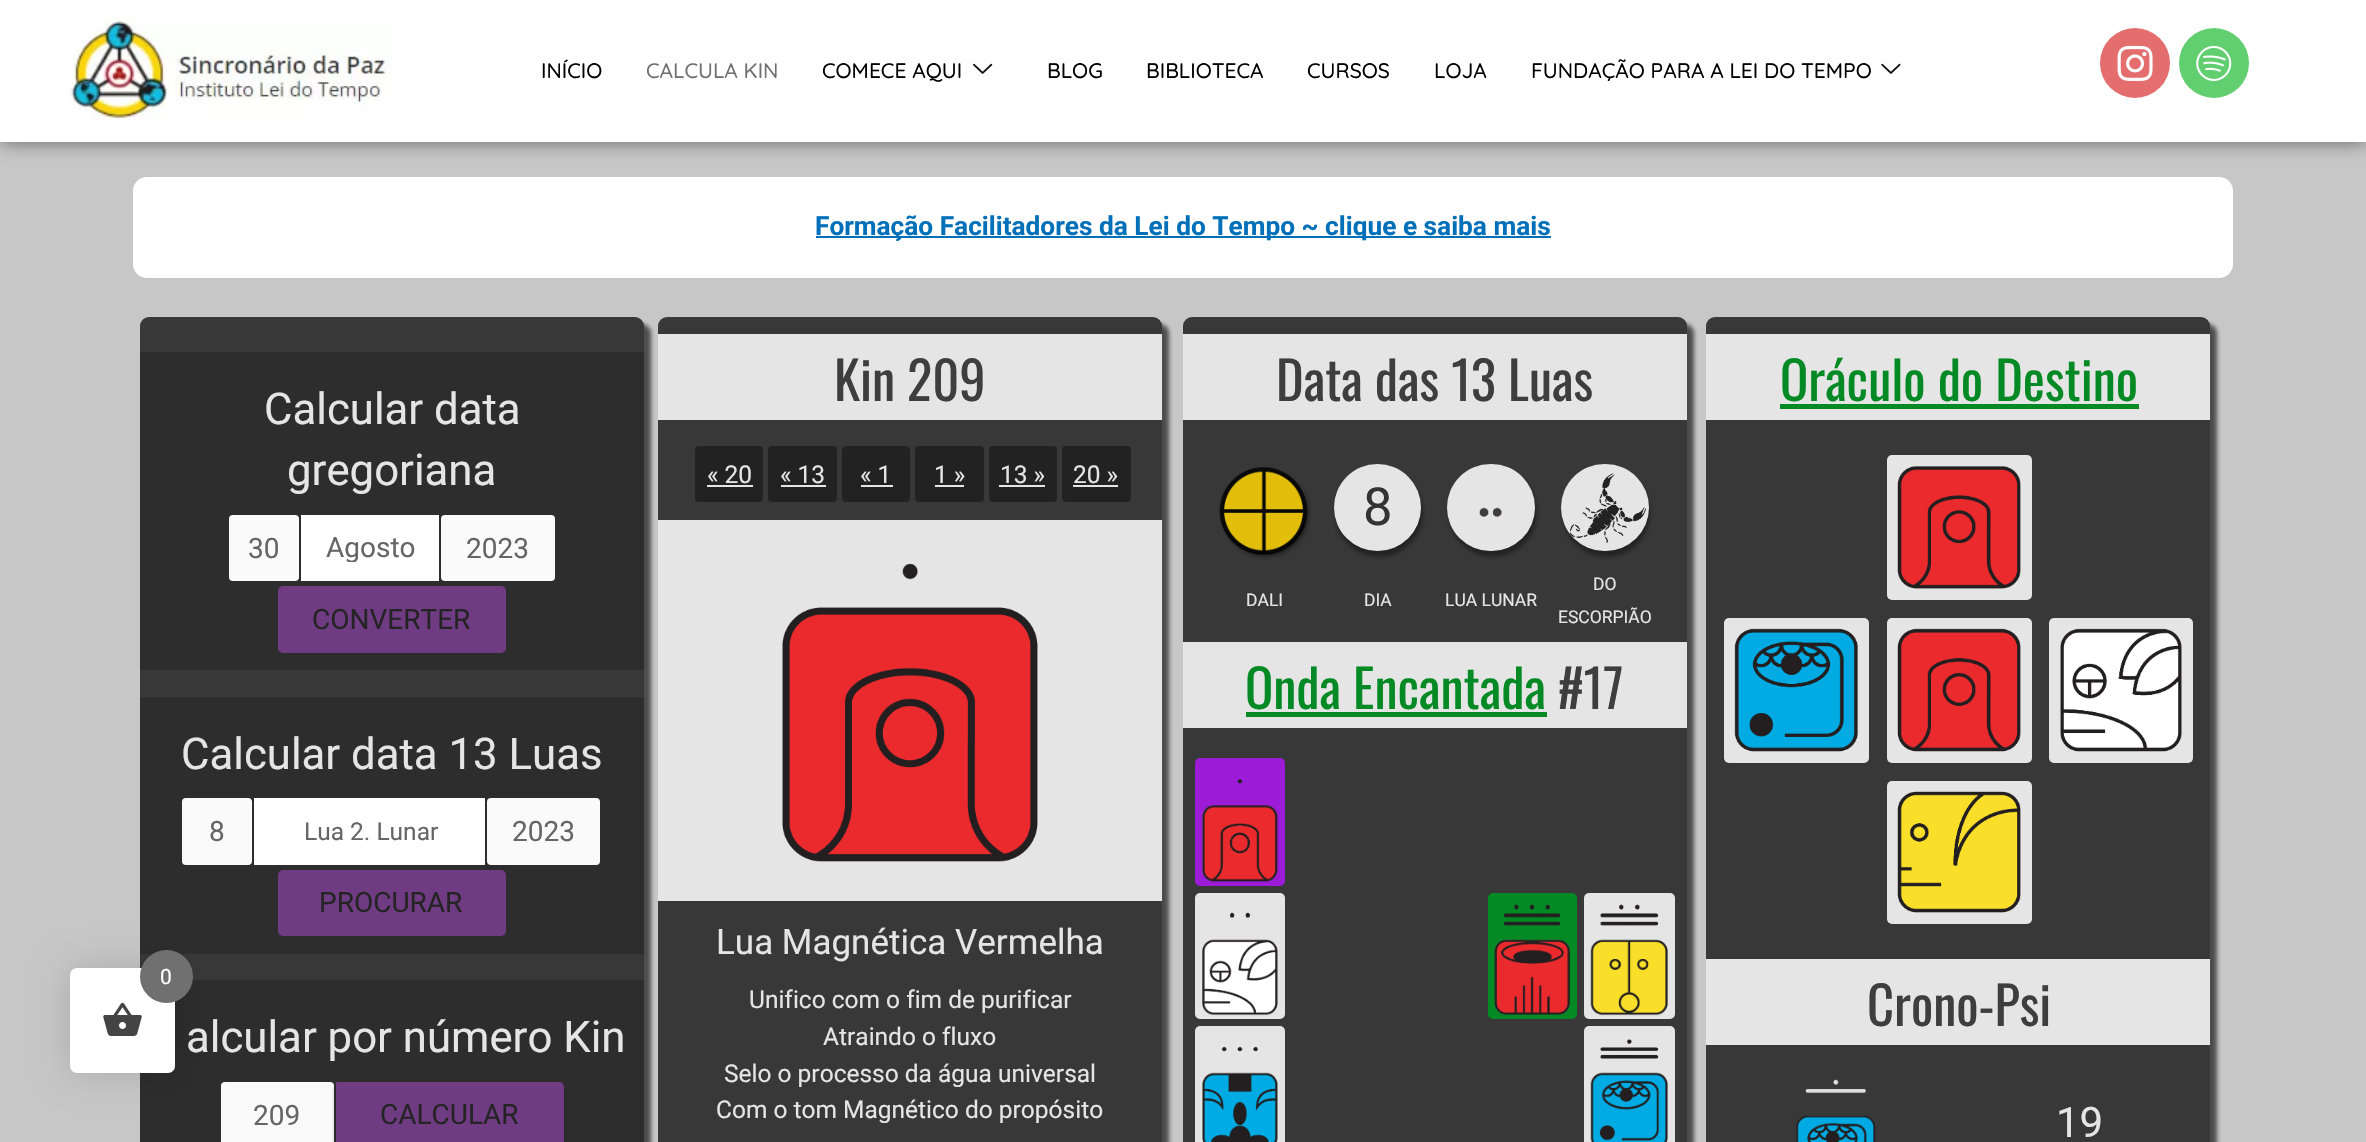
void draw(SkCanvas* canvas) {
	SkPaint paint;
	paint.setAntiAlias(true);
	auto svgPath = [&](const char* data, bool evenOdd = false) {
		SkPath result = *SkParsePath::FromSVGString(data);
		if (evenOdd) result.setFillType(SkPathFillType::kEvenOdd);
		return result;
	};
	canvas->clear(0xffc7c7c7);
	paint.setColor(0xb3181818);
	paint.setMaskFilter(SkMaskFilter::MakeBlur(kNormal_SkBlurStyle, 2));
	canvas->drawRoundRect(SkRect::MakeXYWH(147, 324, 504, 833), 9, 9, paint);
	paint.setMaskFilter(nullptr);
	paint.setColor(0xff383838);
	canvas->drawRoundRect(SkRect::MakeXYWH(140, 317, 504, 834), 9, 9, paint);
	paint.setColor(0xff2d2d2d);
	canvas->drawRect(SkRect::MakeXYWH(140, 697, 504, 257), paint);
	canvas->drawRect(SkRect::MakeXYWH(140, 980, 504, 162), paint);
	paint.setColor(0xfffafafa);
	canvas->drawRoundRect(SkRect::MakeXYWH(221, 1082, 113, 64), 4, 4, paint);
	paint.setColor(0x26000000);
	paint.setMaskFilter(SkMaskFilter::MakeBlur(kNormal_SkBlurStyle, 17.5));
	canvas->drawRoundRect(SkRect::MakeXYWH(70, 968, 105, 105), 7, 7, paint);
	paint.setMaskFilter(nullptr);
	paint.setColor(0xffffffff);
	canvas->drawRoundRect(SkRect::MakeXYWH(70, 968, 105, 105), 7, 7, paint);
	canvas->drawImageRect(SkImages::DeferredFromEncodedData(SkData::MakeFromFileName("img1.png")), SkRect::MakeXYWH(103, 1002, 39, 34), SkSamplingOptions());
	paint.setColor(0xff707070);
	canvas->drawCircle(166.5, 976.5, 26.5, paint);
	SkFont f1(fontMgr->matchFamilyStyle("Roboto", SkFontStyle::Normal()), 21);
	f1.setSubpixel(true);
	paint.setColor(0xffffffff);
	canvas->drawString("0", 160, 984, f1, paint);
	paint.setColor(0x80000000);
	paint.setMaskFilter(SkMaskFilter::MakeBlur(kNormal_SkBlurStyle, 9));
	canvas->drawRect(SkRect::MakeXYWH(0, 0, 2366, 142), paint);
	paint.setMaskFilter(nullptr);
	paint.setColor(0xffffffff);
	canvas->drawRect(SkRect::MakeXYWH(0, 0, 2366, 142), paint);
	canvas->drawImageRect(SkImages::DeferredFromEncodedData(SkData::MakeFromFileName("img2.png")), SkRect::MakeXYWH(68, 18, 325, 102), SkSamplingOptions());
	SkFont f2(fontMgr->matchFamilyStyle("Quicksand", SkFontStyle(500, SkFontStyle::kNormal_Width, SkFontStyle::kUpright_Slant)), 21);
	f2.setSubpixel(true);
	paint.setColor(0xff000000);
	canvas->drawString("INÍCIO", 541, 78, f2, paint);
	paint.setColor(0xff707070);
	canvas->drawString("CALCULA KIN", 646, 78, f2, paint);
	paint.setColor(0xff000000);
	canvas->drawString("COMECE AQUI", 822, 78, f2, paint);
	canvas->drawImageRect(SkImages::DeferredFromEncodedData(SkData::MakeFromFileName("img3.png")), SkRect::MakeXYWH(973, 63, 20, 11), SkSamplingOptions());
	canvas->drawString("BLOG", 1047, 78, f2, paint);
	canvas->drawString("BIBLIOTECA", 1146, 78, f2, paint);
	canvas->drawString("CURSOS", 1307, 78, f2, paint);
	canvas->drawString("LOJA", 1434, 78, f2, paint);
	canvas->drawString("FUNDAÇÃO PARA A LEI DO TEMPO", 1531, 78, f2, paint);
	canvas->drawImageRect(SkImages::DeferredFromEncodedData(SkData::MakeFromFileName("img4.png")), SkRect::MakeXYWH(1881, 63, 20, 11), SkSamplingOptions());
	paint.setColor(0xffe46e6e);
	canvas->drawCircle(2135, 63, 35, paint);
	canvas->drawImageRect(SkImages::DeferredFromEncodedData(SkData::MakeFromFileName("img5.png")), SkRect::MakeXYWH(2117, 45, 36, 36), SkSamplingOptions());
	paint.setColor(0xff61ce70);
	canvas->drawCircle(2214, 63, 35, paint);
	canvas->drawImageRect(SkImages::DeferredFromEncodedData(SkData::MakeFromFileName("img6.png")), SkRect::MakeXYWH(2196, 45, 36, 36), SkSamplingOptions());
	paint.setColor(0xffffffff);
	canvas->drawRoundRect(SkRect::MakeXYWH(133, 177, 2100, 101), 14, 14, paint);
	paint.setColor(0xff0170b9);
	canvas->drawRect(SkRect::MakeXYWH(816, 236, 735, 2), paint);
	SkFont f3(fontMgr->matchFamilyStyle("Roboto", SkFontStyle::Bold()), 26.25);
	f3.setSubpixel(true);
	canvas->drawString("Formação Facilitadores da Lei do Tempo ~ clique e saiba mais", 815, 235, f3, paint);
	paint.setColor(0xff2d2d2d);
	canvas->drawRect(SkRect::MakeXYWH(140, 352, 504, 318), paint);
	SkFont f4(fontMgr->matchFamilyStyle("Roboto", SkFontStyle::Normal()), 43.75);
	f4.setSubpixel(true);
	paint.setColor(0xffe5e5e5);
	canvas->drawString("Calcular data", 264, 424, f4, paint);
	canvas->drawString("gregoriana", 287, 485, f4, paint);
	paint.setColor(0xfffafafa);
	canvas->drawRoundRect(SkRect::MakeXYWH(229, 515, 70, 66), 4, 4, paint);
	SkFont f5(fontMgr->matchFamilyStyle("Roboto", SkFontStyle::Normal()), 28);
	f5.setSubpixel(true);
	paint.setColor(0xff666666);
	canvas->drawString("30", 248, 558, f5, paint);
	paint.setColor(0xffffffff);
	canvas->drawRect(SkRect::MakeXYWH(301, 515, 138, 66), paint);
	canvas->save();
	canvas->clipRect(SkRect::MakeXYWH(306, 534, 132, 28));
	paint.setColor(0xff666666);
	canvas->drawString("Agosto", 326, 557, f5, paint);
	canvas->restore();
	paint.setColor(0xfffafafa);
	canvas->drawRoundRect(SkRect::MakeXYWH(441, 515, 114, 66), 4, 4, paint);
	paint.setColor(0xff666666);
	canvas->drawString("2023", 466, 558, f5, paint);
	paint.setColor(0xff6f3b83);
	canvas->drawRoundRect(SkRect::MakeXYWH(278, 586, 228, 67), 5, 5, paint);
	paint.setColor(0xff242424);
	canvas->drawString("CONVERTER", 312, 629, f5, paint);
	paint.setColor(0xffe5e5e5);
	canvas->drawString("Calcular data 13 Luas", 181, 769, f4, paint);
	paint.setColor(0xfffafafa);
	canvas->drawRoundRect(SkRect::MakeXYWH(182, 798, 70, 67), 4, 4, paint);
	paint.setColor(0xff666666);
	canvas->drawString("8", 209, 841, f5, paint);
	paint.setColor(0xffffffff);
	canvas->drawRect(SkRect::MakeXYWH(254, 798, 231, 67), paint);
	SkFont f6(fontMgr->matchFamilyStyle("Roboto", SkFontStyle::Normal()), 24.5);
	f6.setSubpixel(true);
	paint.setColor(0xff666666);
	canvas->drawString("Lua 2. Lunar", 304, 840, f6, paint);
	paint.setColor(0xfffafafa);
	canvas->drawRoundRect(SkRect::MakeXYWH(487, 798, 113, 67), 4, 4, paint);
	paint.setColor(0xff666666);
	canvas->drawString("2023", 512, 841, f5, paint);
	paint.setColor(0xff6f3b83);
	canvas->drawRoundRect(SkRect::MakeXYWH(278, 870, 228, 66), 5, 5, paint);
	paint.setColor(0xff242424);
	canvas->drawString("PROCURAR", 319, 912, f5, paint);
	paint.setColor(0xffe5e5e5);
	canvas->drawString("alcular por número Kin", 186, 1052, f4, paint);
	paint.setColor(0xff666666);
	canvas->drawString("209", 253, 1125, f5, paint);
	paint.setColor(0xcc222222);
	paint.setMaskFilter(SkMaskFilter::MakeBlur(kNormal_SkBlurStyle, 2));
	canvas->drawRoundRect(SkRect::MakeXYWH(336, 1085, 228, 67), 5, 5, paint);
	paint.setMaskFilter(nullptr);
	paint.setColor(0xff6f3b83);
	canvas->drawPath(svgPath("M336 1082H559C562 1082 564 1084 564 1087V1142C564 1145 562 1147 559 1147H336Z"), paint);
	paint.setColor(0xff242424);
	canvas->drawString("CALCULAR", 380, 1124, f5, paint);
	paint.setColor(0xb3181818);
	paint.setMaskFilter(SkMaskFilter::MakeBlur(kNormal_SkBlurStyle, 2));
	canvas->drawRoundRect(SkRect::MakeXYWH(665, 324, 504, 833), 9, 9, paint);
	paint.setMaskFilter(nullptr);
	paint.setColor(0xff383838);
	canvas->drawRoundRect(SkRect::MakeXYWH(658, 317, 504, 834), 9, 9, paint);
	paint.setColor(0xffe5e5e5);
	canvas->drawRect(SkRect::MakeXYWH(658, 334, 504, 86), paint);
	SkFont f7(fontMgr->matchFamilyStyle("Oswald", SkFontStyle::Normal()), 52.5);
	f7.setSubpixel(true);
	paint.setColor(0xff3e3e3e);
	canvas->drawString("Kin 209", 834, 401, f7, paint);
	paint.setColor(0xff222222);
	canvas->drawRoundRect(SkRect::MakeXYWH(695, 446, 68, 56), 4, 4, paint);
	paint.setColor(0xffe5e5e5);
	canvas->drawString("« 20", 707, 483, f6, paint);
	canvas->drawRect(SkRect::MakeXYWH(707, 485, 46, 2), paint);
	paint.setColor(0xff222222);
	canvas->drawRoundRect(SkRect::MakeXYWH(768, 446, 69, 56), 4, 4, paint);
	paint.setColor(0xffe5e5e5);
	canvas->drawString("« 13", 780, 483, f6, paint);
	canvas->drawRect(SkRect::MakeXYWH(781, 485, 45, 2), paint);
	paint.setColor(0xff222222);
	canvas->drawRoundRect(SkRect::MakeXYWH(842, 446, 68, 56), 4, 4, paint);
	paint.setColor(0xffe5e5e5);
	canvas->drawString("« 1", 860, 483, f6, paint);
	canvas->drawRect(SkRect::MakeXYWH(861, 485, 32, 2), paint);
	paint.setColor(0xff222222);
	canvas->drawRoundRect(SkRect::MakeXYWH(915, 446, 69, 56), 4, 4, paint);
	paint.setColor(0xffe5e5e5);
	canvas->drawString("1 »", 934, 483, f6, paint);
	canvas->drawRect(SkRect::MakeXYWH(935, 485, 29, 2), paint);
	paint.setColor(0xff222222);
	canvas->drawRoundRect(SkRect::MakeXYWH(989, 446, 68, 56), 4, 4, paint);
	paint.setColor(0xffe5e5e5);
	canvas->drawString("13 »", 1000, 483, f6, paint);
	canvas->drawRect(SkRect::MakeXYWH(999, 485, 46, 2), paint);
	paint.setColor(0xff222222);
	canvas->drawRoundRect(SkRect::MakeXYWH(1062, 446, 69, 56), 4, 4, paint);
	paint.setColor(0xffe5e5e5);
	canvas->drawString("20 »", 1073, 483, f6, paint);
	canvas->drawRect(SkRect::MakeXYWH(1073, 485, 45, 2), paint);
	canvas->drawRect(SkRect::MakeXYWH(658, 520, 504, 381), paint);
	canvas->drawImageRect(SkImages::DeferredFromEncodedData(SkData::MakeFromFileName("img7.png")), SkRect::MakeXYWH(902, 563, 16, 17), SkSamplingOptions());
	canvas->drawImageRect(SkImages::DeferredFromEncodedData(SkData::MakeFromFileName("img8.png")), SkRect::MakeXYWH(782, 607, 256, 255), SkSamplingOptions());
	SkFont f8(fontMgr->matchFamilyStyle("Roboto", SkFontStyle::Normal()), 35);
	f8.setSubpixel(true);
	canvas->drawString("Lua Magnética Vermelha", 716, 954, f8, paint);
	canvas->drawString("Unifico com o fim de purificar", 749, 1008, f6, paint);
	canvas->drawString("Atraindo o fluxo", 823, 1045, f6, paint);
	canvas->drawString("Selo o processo da água universal", 724, 1082, f6, paint);
	canvas->drawString("Com o tom Magnético do propósito", 716, 1118, f6, paint);
	paint.setColor(0xb3181818);
	paint.setMaskFilter(SkMaskFilter::MakeBlur(kNormal_SkBlurStyle, 2));
	canvas->drawRoundRect(SkRect::MakeXYWH(1190, 324, 504, 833), 9, 9, paint);
	paint.setMaskFilter(nullptr);
	paint.setColor(0xff383838);
	canvas->drawRoundRect(SkRect::MakeXYWH(1183, 317, 504, 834), 9, 9, paint);
	paint.setColor(0xffe5e5e5);
	canvas->drawRect(SkRect::MakeXYWH(1183, 334, 504, 86), paint);
	paint.setColor(0xff3e3e3e);
	canvas->drawString("Data das 13 Luas", 1276, 401, f7, paint);
	paint.setColor(0xff222222);
	paint.setMaskFilter(SkMaskFilter::MakeBlur(kNormal_SkBlurStyle, 2));
	canvas->drawRoundRect(SkRect::MakeXYWH(1222, 469, 87, 88), 43.5, 43.5, paint);
	paint.setMaskFilter(nullptr);
	paint.setColor(0xff383838);
	canvas->drawCircle(1263.5, 507.5, 43.5, paint);
	canvas->drawImageRect(SkImages::DeferredFromEncodedData(SkData::MakeFromFileName("img9.png")), SkRect::MakeXYWH(1219, 467, 89, 88), SkSamplingOptions());
	paint.setColor(0xff222222);
	paint.setMaskFilter(SkMaskFilter::MakeBlur(kNormal_SkBlurStyle, 2));
	canvas->drawRoundRect(SkRect::MakeXYWH(1335, 469, 88, 88), 44, 44, paint);
	paint.setMaskFilter(nullptr);
	paint.setColor(0xffe5e5e5);
	canvas->drawCircle(1377.5, 507.5, 43.5, paint);
	SkFont f9(fontMgr->matchFamilyStyle("Roboto", SkFontStyle::Normal()), 52.5);
	f9.setSubpixel(true);
	paint.setColor(0xff333333);
	canvas->drawString("8", 1363, 525, f9, paint);
	paint.setColor(0xff222222);
	paint.setMaskFilter(SkMaskFilter::MakeBlur(kNormal_SkBlurStyle, 2));
	canvas->drawRoundRect(SkRect::MakeXYWH(1449, 469, 88, 88), 44, 44, paint);
	paint.setMaskFilter(nullptr);
	paint.setColor(0xffe5e5e5);
	canvas->drawRoundRect(SkRect::MakeXYWH(1447, 464, 88, 87), 43.5, 43.5, paint);
	canvas->drawImageRect(SkImages::DeferredFromEncodedData(SkData::MakeFromFileName("img10.png")), SkRect::MakeXYWH(1479, 507, 23, 10), SkSamplingOptions());
	paint.setColor(0xff222222);
	paint.setMaskFilter(SkMaskFilter::MakeBlur(kNormal_SkBlurStyle, 2));
	canvas->drawRoundRect(SkRect::MakeXYWH(1563, 469, 87, 88), 43.5, 43.5, paint);
	paint.setMaskFilter(nullptr);
	paint.setColor(0xffe5e5e5);
	canvas->drawRoundRect(SkRect::MakeXYWH(1561, 464, 88, 87), 43.5, 43.5, paint);
	canvas->drawImageRect(SkImages::DeferredFromEncodedData(SkData::MakeFromFileName("img11.png")), SkRect::MakeXYWH(1569, 473, 78, 71), SkSamplingOptions());
	SkFont f10(fontMgr->matchFamilyStyle("Roboto", SkFontStyle::Normal()), 17.5);
	f10.setSubpixel(true);
	canvas->drawString("DALI", 1246, 606, f10, paint);
	canvas->drawString("DIA", 1364, 606, f10, paint);
	canvas->drawString("LUA LUNAR", 1445, 606, f10, paint);
	canvas->drawString("DO", 1593, 590, f10, paint);
	canvas->drawString("ESCORPIÃO", 1558, 623, f10, paint);
	canvas->drawRect(SkRect::MakeXYWH(1183, 642, 504, 86), paint);
	paint.setColor(0xff048a24);
	canvas->drawString("Onda Encantada", 1245, 709, f7, paint);
	canvas->drawRect(SkRect::MakeXYWH(1246, 712, 301, 5), paint);
	paint.setColor(0xff3e3e3e);
	canvas->drawString("#17", 1558, 709, f7, paint);
	paint.setColor(0xff9b1bd6);
	canvas->drawRoundRect(SkRect::MakeXYWH(1195, 758, 90, 128), 5, 5, paint);
	canvas->drawImageRect(SkImages::DeferredFromEncodedData(SkData::MakeFromFileName("img12.png")), SkRect::MakeXYWH(1237, 779, 6, 5), SkSamplingOptions());
	canvas->drawImageRect(SkImages::DeferredFromEncodedData(SkData::MakeFromFileName("img13.png")), SkRect::MakeXYWH(1202, 805, 76, 77), SkSamplingOptions());
	paint.setColor(0xffe5e5e5);
	canvas->drawRoundRect(SkRect::MakeXYWH(1195, 893, 90, 126), 5, 5, paint);
	canvas->drawImageRect(SkImages::DeferredFromEncodedData(SkData::MakeFromFileName("img14.png")), SkRect::MakeXYWH(1230, 912, 21, 7), SkSamplingOptions());
	canvas->drawImageRect(SkImages::DeferredFromEncodedData(SkData::MakeFromFileName("img15.png")), SkRect::MakeXYWH(1202, 939, 76, 77), SkSamplingOptions());
	paint.setColor(0xff048a24);
	canvas->drawRoundRect(SkRect::MakeXYWH(1488, 893, 89, 126), 5, 5, paint);
	canvas->drawImageRect(SkImages::DeferredFromEncodedData(SkData::MakeFromFileName("img16.png")), SkRect::MakeXYWH(1503, 904, 58, 22), SkSamplingOptions());
	canvas->drawImageRect(SkImages::DeferredFromEncodedData(SkData::MakeFromFileName("img17.png")), SkRect::MakeXYWH(1494, 939, 76, 76), SkSamplingOptions());
	paint.setColor(0xffe5e5e5);
	canvas->drawRoundRect(SkRect::MakeXYWH(1584, 893, 91, 126), 5, 5, paint);
	canvas->drawImageRect(SkImages::DeferredFromEncodedData(SkData::MakeFromFileName("img18.png")), SkRect::MakeXYWH(1600, 904, 59, 22), SkSamplingOptions());
	canvas->drawImageRect(SkImages::DeferredFromEncodedData(SkData::MakeFromFileName("img19.png")), SkRect::MakeXYWH(1590, 939, 78, 77), SkSamplingOptions());
	canvas->drawRoundRect(SkRect::MakeXYWH(1195, 1026, 90, 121), 5, 5, paint);
	canvas->drawImageRect(SkImages::DeferredFromEncodedData(SkData::MakeFromFileName("img20.png")), SkRect::MakeXYWH(1221, 1046, 37, 6), SkSamplingOptions());
	canvas->drawImageRect(SkImages::DeferredFromEncodedData(SkData::MakeFromFileName("img21.png")), SkRect::MakeXYWH(1202, 1072, 76, 70), SkSamplingOptions());
	canvas->drawRoundRect(SkRect::MakeXYWH(1584, 1026, 91, 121), 5, 5, paint);
	canvas->drawImageRect(SkImages::DeferredFromEncodedData(SkData::MakeFromFileName("img22.png")), SkRect::MakeXYWH(1600, 1039, 59, 20), SkSamplingOptions());
	canvas->drawImageRect(SkImages::DeferredFromEncodedData(SkData::MakeFromFileName("img23.png")), SkRect::MakeXYWH(1590, 1072, 78, 70), SkSamplingOptions());
	paint.setColor(0xb3181818);
	paint.setMaskFilter(SkMaskFilter::MakeBlur(kNormal_SkBlurStyle, 2));
	canvas->drawRoundRect(SkRect::MakeXYWH(1713, 324, 504, 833), 9, 9, paint);
	paint.setMaskFilter(nullptr);
	paint.setColor(0xff383838);
	canvas->drawRoundRect(SkRect::MakeXYWH(1706, 317, 504, 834), 9, 9, paint);
	paint.setColor(0xffe5e5e5);
	canvas->drawRect(SkRect::MakeXYWH(1706, 334, 504, 86), paint);
	paint.setColor(0xff048a24);
	canvas->drawString("Oráculo do Destino", 1780, 401, f7, paint);
	canvas->drawRect(SkRect::MakeXYWH(1780, 404, 359, 5), paint);
	paint.setColor(0xffe5e5e5);
	canvas->drawRoundRect(SkRect::MakeXYWH(1887, 455, 145, 145), 5, 5, paint);
	canvas->drawImageRect(SkImages::DeferredFromEncodedData(SkData::MakeFromFileName("img24.png")), SkRect::MakeXYWH(1897, 466, 124, 123), SkSamplingOptions());
	canvas->drawRoundRect(SkRect::MakeXYWH(1724, 618, 145, 145), 5, 5, paint);
	canvas->drawImageRect(SkImages::DeferredFromEncodedData(SkData::MakeFromFileName("img25.png")), SkRect::MakeXYWH(1734, 628, 125, 124), SkSamplingOptions());
	canvas->drawRoundRect(SkRect::MakeXYWH(1887, 618, 145, 145), 5, 5, paint);
	canvas->drawImageRect(SkImages::DeferredFromEncodedData(SkData::MakeFromFileName("img26.png")), SkRect::MakeXYWH(1897, 628, 124, 124), SkSamplingOptions());
	canvas->drawRoundRect(SkRect::MakeXYWH(2049, 618, 144, 145), 5, 5, paint);
	canvas->drawImageRect(SkImages::DeferredFromEncodedData(SkData::MakeFromFileName("img27.png")), SkRect::MakeXYWH(2060, 628, 122, 124), SkSamplingOptions());
	canvas->drawRoundRect(SkRect::MakeXYWH(1887, 781, 145, 143), 5, 5, paint);
	canvas->drawImageRect(SkImages::DeferredFromEncodedData(SkData::MakeFromFileName("img28.png")), SkRect::MakeXYWH(1897, 791, 124, 122), SkSamplingOptions());
	canvas->drawRect(SkRect::MakeXYWH(1706, 959, 504, 86), paint);
	paint.setColor(0xff3e3e3e);
	canvas->drawString("Crono-Psi", 1867, 1026, f7, paint);
	canvas->drawImageRect(SkImages::DeferredFromEncodedData(SkData::MakeFromFileName("img29.png")), SkRect::MakeXYWH(1805, 1079, 62, 15), SkSamplingOptions());
	canvas->drawImageRect(SkImages::DeferredFromEncodedData(SkData::MakeFromFileName("img30.png")), SkRect::MakeXYWH(1796, 1115, 80, 27), SkSamplingOptions());
	SkFont f11(fontMgr->matchFamilyStyle("Roboto", SkFontStyle::Normal()), 42);
	f11.setSubpixel(true);
	paint.setColor(0xffe5e5e5);
	canvas->drawString("19", 2056, 1137, f11, paint);
}
